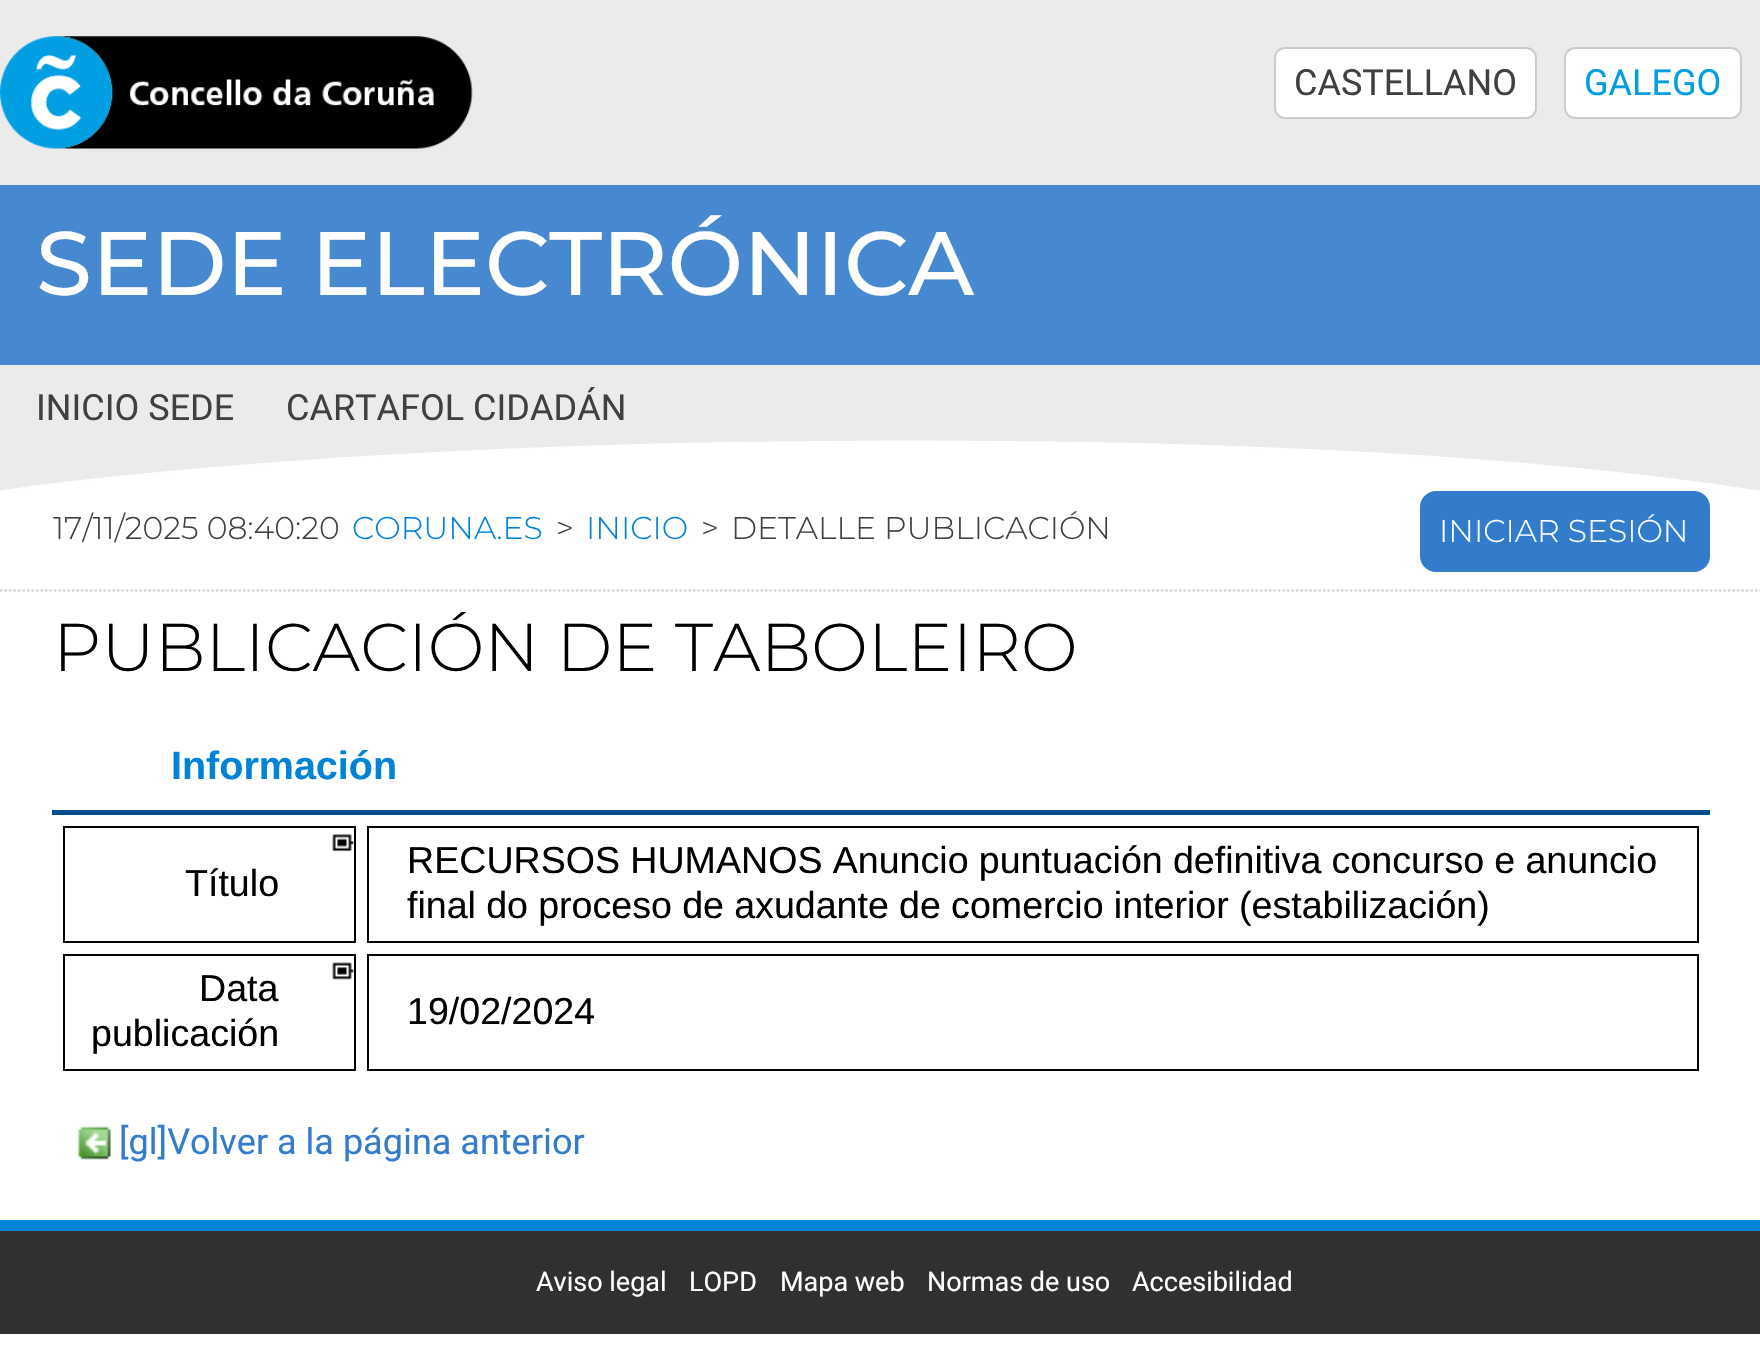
void draw(SkCanvas* canvas) {
	SkPaint paint;
	paint.setAntiAlias(true);
	auto spacedText = [&](const char* s, float x, float y, const SkFont& font, const SkPaint& ink, float letter, float word) {
		std::vector<SkGlyphID> glyphs(font.countText(s, strlen(s), SkTextEncoding::kUTF8));
		std::vector<float> xs(glyphs.size());
		font.textToGlyphs(s, strlen(s), SkTextEncoding::kUTF8, glyphs);
		font.getXPos(glyphs, xs, x);
		float extra = 0;
		for (size_t i = 0; i < glyphs.size(); i++) {
			xs[i] += extra;
			extra += letter + word * (glyphs[i] == font.unicharToGlyph(' '));
		}
		canvas->drawTextBlob(SkTextBlob::MakeFromPosHGlyphs(glyphs, xs, y, font), 0, 0, ink);
	};
	auto svgPath = [&](const char* data, bool evenOdd = false) {
		SkPath result = *SkParsePath::FromSVGString(data);
		if (evenOdd) result.setFillType(SkPathFillType::kEvenOdd);
		return result;
	};
	canvas->clear(0xffffffff);
	paint.setColor(0xffebebeb);
	canvas->drawRect(SkRect::MakeXYWH(0, 0, 1760, 185), paint);
	canvas->drawImageRect(SkImages::DeferredFromEncodedData(SkData::MakeFromFileName("img1.png")), SkRect::MakeXYWH(0, 36, 473, 113), SkSamplingOptions());
	paint.setColor(0xffffffff);
	canvas->drawRoundRect(SkRect::MakeXYWH(1275, 48, 261, 70), 10, 10, paint);
	paint.setStroke(true);
	paint.setStrokeWidth(2);
	paint.setColor(0xffcccccc);
	canvas->drawRoundRect(SkRect::MakeXYWH(1275, 48, 261, 70), 10, 10, paint);
	SkFont f1(fontMgr->matchFamilyStyle("Heebo", SkFontStyle::Normal()), 36);
	f1.setSubpixel(true);
	paint.setStroke(false);
	paint.setColor(0xff404040);
	canvas->drawString("CASTELLANO", 1294, 95, f1, paint);
	paint.setColor(0xffffffff);
	canvas->drawRoundRect(SkRect::MakeXYWH(1565, 48, 176, 70), 10, 10, paint);
	paint.setStroke(true);
	paint.setColor(0xffcccccc);
	canvas->drawRoundRect(SkRect::MakeXYWH(1565, 48, 176, 70), 10, 10, paint);
	paint.setStroke(false);
	paint.setColor(0xff009ee0);
	canvas->drawString("GALEGO", 1584, 95, f1, paint);
	paint.setColor(0xff4789d0);
	canvas->drawRect(SkRect::MakeXYWH(0, 185, 1760, 180), paint);
	SkFont f2(fontMgr->matchFamilyStyle("Montserrat", SkFontStyle(500, SkFontStyle::kNormal_Width, SkFontStyle::kUpright_Slant)), 90);
	f2.setSubpixel(true);
	paint.setColor(0xffffffff);
	canvas->drawString("SEDE ELECTRÓNICA", 36, 295, f2, paint);
	paint.setColor(0xffebebeb);
	canvas->drawRect(SkRect::MakeXYWH(0, 365, 1760, 126), paint);
	paint.setColor(0xff404040);
	canvas->drawString("INICIO SEDE", 36, 420, f1, paint);
	canvas->drawString("CARTAFOL CIDADÁN", 286, 420, f1, paint);
	canvas->save();
	canvas->clipRect(SkRect::MakeXYWH(0, 437, 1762, 54));
	paint.setColor(0xffffffff);
	canvas->drawPath(svgPath("M0 492C67 481 381 442 899 442C1461 441 1714 485 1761 492"), paint);
	paint.setStroke(true);
	paint.setStrokeWidth(1.8);
	canvas->drawPath(svgPath("M0 491.5C67 480.5 381.5 442 899 441.5C1461 441 1714.5 485 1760.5 491.5"), paint);
	canvas->restore();
	paint.setStrokeWidth(2.2);
	paint.setColor(0xffcccccc);
	paint.setPathEffect(SkDashPathEffect::Make({{2.25f, 2.25f}}, 0));
	canvas->drawPath(svgPath("M0 590.5H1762"), paint);
	paint.setPathEffect(nullptr);
	SkFont f3(fontMgr->matchFamilyStyle("Montserrat", SkFontStyle(300, SkFontStyle::kNormal_Width, SkFontStyle::kUpright_Slant)), 31.5);
	f3.setSubpixel(true);
	paint.setStroke(false);
	paint.setColor(0xff404040);
	canvas->drawString("17/11/2025 08:40:20", 53, 539, f3, paint);
	paint.setColor(0xff0083d7);
	canvas->drawString("CORUNA.ES", 352, 539, f3, paint);
	paint.setColor(0xff404040);
	canvas->drawString(">", 556, 539, f3, paint);
	paint.setColor(0xff0083d7);
	canvas->drawString("INICIO", 586, 539, f3, paint);
	paint.setColor(0xff404040);
	canvas->drawString(">", 701, 539, f3, paint);
	canvas->drawString("DETALLE PUBLICACIÓN", 731, 539, f3, paint);
	paint.setColor(0xff327ccb);
	canvas->drawRoundRect(SkRect::MakeXYWH(1421, 492, 288, 79), 15, 15, paint);
	paint.setStroke(true);
	paint.setStrokeWidth(2);
	canvas->drawRoundRect(SkRect::MakeXYWH(1421, 492, 288, 79), 15, 15, paint);
	paint.setStroke(false);
	paint.setColor(0xffffffff);
	canvas->drawString("INICIAR SESIÓN", 1439, 542, f3, paint);
	SkFont f4(fontMgr->matchFamilyStyle("Montserrat", SkFontStyle(300, SkFontStyle::kNormal_Width, SkFontStyle::kUpright_Slant)), 67.5);
	f4.setSubpixel(true);
	paint.setColor(0xff000000);
	canvas->drawString("PUBLICACIÓN DE TABOLEIRO", 53, 671, f4, paint);
	paint.setColor(0xff004e92);
	canvas->drawRect(SkRect::MakeXYWH(52, 810, 1658, 5), paint);
	SkFont f5(fontMgr->matchFamilyStyle("Liberation Sans", SkFontStyle::Bold()), 39.5);
	f5.setSubpixel(true);
	paint.setColor(0xff0083d7);
	canvas->drawString("Información", 171, 779, f5, paint);
	canvas->drawImageRect(SkImages::DeferredFromEncodedData(SkData::MakeFromFileName("img2.png")), SkRect::MakeXYWH(332, 834, 22, 18), SkSamplingOptions());
	paint.setStroke(true);
	paint.setColor(0xff000000);
	canvas->drawRect(SkRect::MakeXYWH(64, 827, 291, 115), paint);
	SkFont f6(fontMgr->matchFamilyStyle("Liberation Sans", SkFontStyle::Normal()), 37.6);
	f6.setSubpixel(true);
	paint.setStroke(false);
	canvas->drawString("Título", 185, 896, f6, paint);
	paint.setStroke(true);
	canvas->drawRect(SkRect::MakeXYWH(368, 827, 1330, 115), paint);
	paint.setStroke(false);
	spacedText("RECURSOS HUMANOS Anuncio puntuación definitiva concurso e anuncio", 407, 873, f6, paint, 0, -0.25);
	spacedText("final do proceso de axudante de comercio interior (estabilización)", 407, 918, f6, paint, 0, -0.25);
	canvas->drawImageRect(SkImages::DeferredFromEncodedData(SkData::MakeFromFileName("img3.png")), SkRect::MakeXYWH(332, 962, 22, 18), SkSamplingOptions());
	paint.setStroke(true);
	canvas->drawRect(SkRect::MakeXYWH(64, 955, 291, 115), paint);
	paint.setStroke(false);
	canvas->drawString("Data", 199, 1001, f6, paint);
	canvas->drawString("publicación", 91, 1046, f6, paint);
	paint.setStroke(true);
	canvas->drawRect(SkRect::MakeXYWH(368, 955, 1330, 115), paint);
	paint.setStroke(false);
	canvas->drawString("19/02/2024", 407, 1024, f6, paint);
	canvas->drawImageRect(SkImages::DeferredFromEncodedData(SkData::MakeFromFileName("img4.png")), SkRect::MakeXYWH(78, 1126, 33, 34), SkSamplingOptions());
	paint.setColor(0xff327ccb);
	canvas->drawString("[gl]Volver a la página anterior", 119, 1154, f1, paint);
	paint.setColor(0xff303030);
	canvas->drawRect(SkRect::MakeXYWH(0, 1231, 1760, 103), paint);
	paint.setColor(0xff0083d7);
	canvas->drawRect(SkRect::MakeXYWH(0, 1220, 1760, 11), paint);
	SkFont f7(fontMgr->matchFamilyStyle("Roboto", SkFontStyle::Normal()), 27);
	f7.setSubpixel(true);
	paint.setColor(0xffffffff);
	canvas->drawString("Aviso legal", 536, 1291, f7, paint);
	canvas->drawString("LOPD", 689, 1291, f7, paint);
	canvas->drawString("Mapa web", 780, 1291, f7, paint);
	canvas->drawString("Normas de uso", 927, 1291, f7, paint);
	canvas->drawString("Accesibilidad", 1132, 1291, f7, paint);
}
